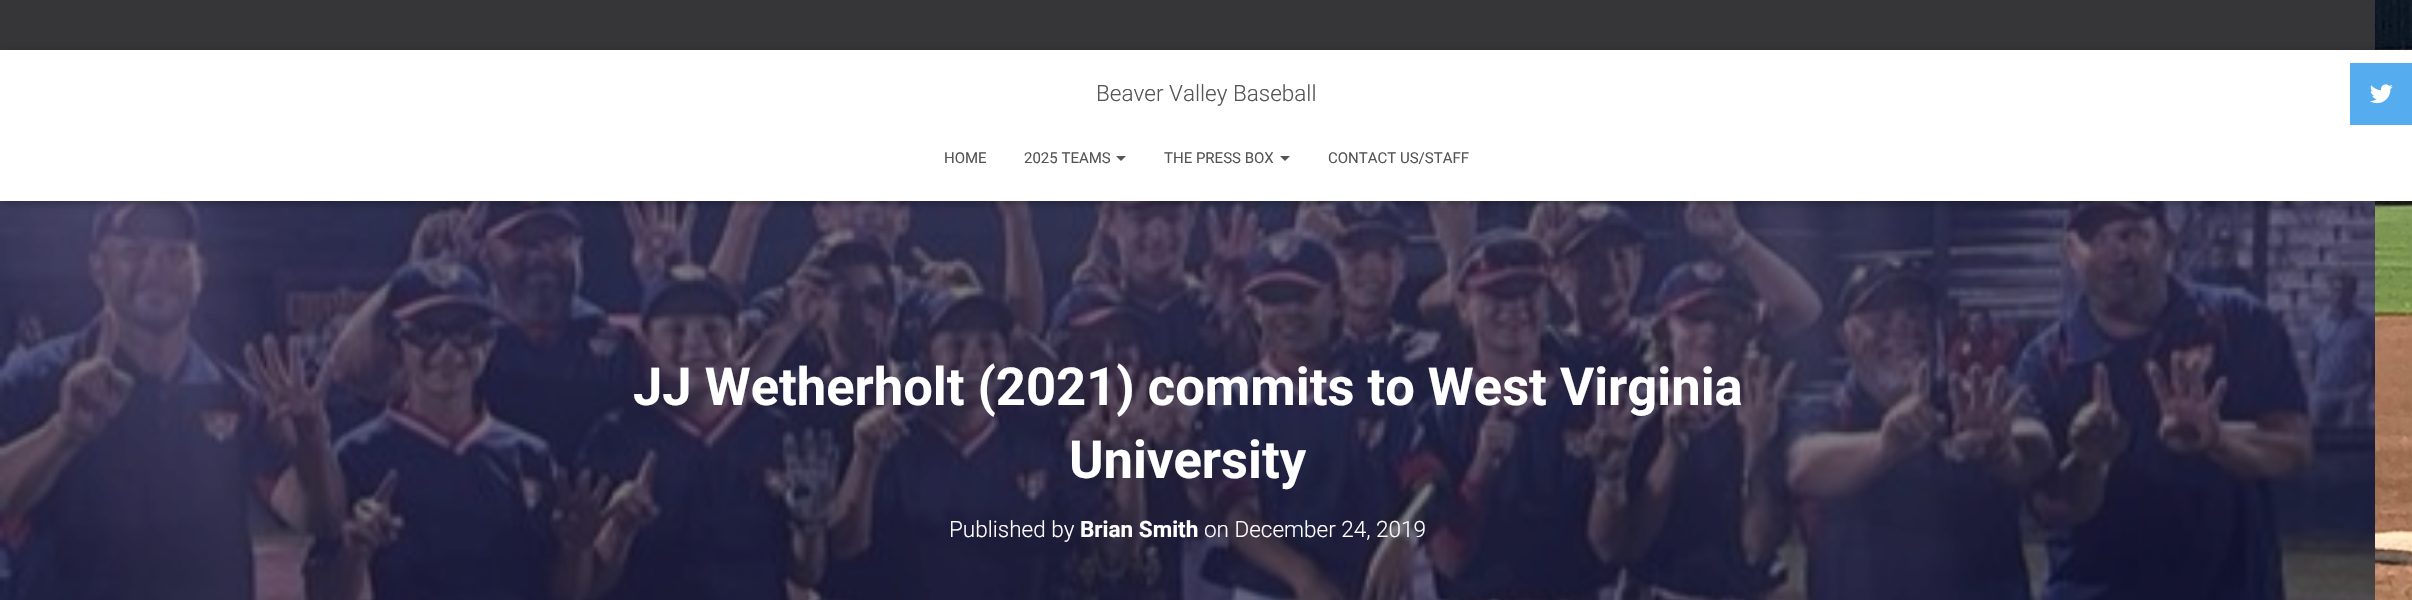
void draw(SkCanvas* canvas) {
	SkPaint paint;
	paint.setAntiAlias(true);
	auto svgPath = [&](const char* data, bool evenOdd = false) {
		SkPath result = *SkParsePath::FromSVGString(data);
		if (evenOdd) result.setFillType(SkPathFillType::kEvenOdd);
		return result;
	};
	canvas->clear(0xffffffff);
	canvas->drawImageRect(SkImages::DeferredFromEncodedData(SkData::MakeFromFileName("img1.png")), SkRect::MakeXYWH(2375, 0, 37, 600), SkSamplingOptions());
	paint.setColor(0xff363537);
	canvas->drawRect(SkRect::MakeXYWH(0, 0, 2375, 50), paint);
	canvas->drawImageRect(SkImages::DeferredFromEncodedData(SkData::MakeFromFileName("img3.png")), SkRect::MakeXYWH(0, 201, 2375, 399), SkSamplingOptions());
	paint.setColor(0x1a000000);
	paint.setMaskFilter(SkMaskFilter::MakeBlur(kNormal_SkBlurStyle, 3));
	canvas->drawRect(SkRect::MakeXYWH(3, 58, 2407, 146), paint);
	paint.setMaskFilter(nullptr);
	paint.setColor(0x1f000000);
	paint.setMaskFilter(SkMaskFilter::MakeBlur(kNormal_SkBlurStyle, 6));
	canvas->drawRect(SkRect::MakeXYWH(0, 51, 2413, 152), paint);
	paint.setMaskFilter(nullptr);
	paint.setColor(0x6b000000);
	paint.setMaskFilter(SkMaskFilter::MakeBlur(kNormal_SkBlurStyle, 6));
	canvas->drawRect(SkRect::MakeXYWH(8, 59, 2397, 136), paint);
	paint.setMaskFilter(nullptr);
	paint.setColor(0xffffffff);
	canvas->drawRect(SkRect::MakeXYWH(0, 50, 2412, 151), paint);
	SkFont f1(fontMgr->matchFamilyStyle("Roboto", SkFontStyle(300, SkFontStyle::kNormal_Width, SkFontStyle::kUpright_Slant)), 22.5);
	f1.setSubpixel(true);
	paint.setColor(0xff555555);
	canvas->drawString("Beaver Valley Baseball", 1096, 101, f1, paint);
	SkFont f2(fontMgr->matchFamilyStyle("Roboto", SkFontStyle::Normal()), 15);
	f2.setSubpixel(true);
	canvas->drawString("HOME", 944, 163, f2, paint);
	canvas->drawString("2025 TEAMS", 1024, 163, f2, paint);
	canvas->drawPath(svgPath("M1116 156H1126L1121 161Z"), paint);
	canvas->drawString("THE PRESS BOX", 1164, 163, f2, paint);
	canvas->drawPath(svgPath("M1280 156H1290L1285 161Z"), paint);
	canvas->drawString("CONTACT US/STAFF", 1328, 163, f2, paint);
	paint.setColor(0xff55acee);
	canvas->drawRect(SkRect::MakeXYWH(2350, 63, 62, 62), paint);
	canvas->drawImageRect(SkImages::DeferredFromEncodedData(SkData::MakeFromFileName("img2.png")), SkRect::MakeXYWH(2370, 84, 23, 20), SkSamplingOptions());
	SkFont f3(fontMgr->matchFamilyStyle("Roboto", SkFontStyle::Bold()), 52.5);
	f3.setSubpixel(true);
	paint.setColor(0xffffffff);
	canvas->drawString("JJ Wetherholt (2021) commits to West Virginia", 633, 405, f3, paint);
	canvas->drawString("University", 1069, 478, f3, paint);
	canvas->drawString("Published by", 949, 537, f1, paint);
	SkFont f4(fontMgr->matchFamilyStyle("Roboto", SkFontStyle::Bold()), 22.5);
	f4.setSubpixel(true);
	canvas->drawString("Brian Smith", 1080, 537, f4, paint);
	canvas->drawString("on December 24, 2019", 1204, 537, f1, paint);
}
